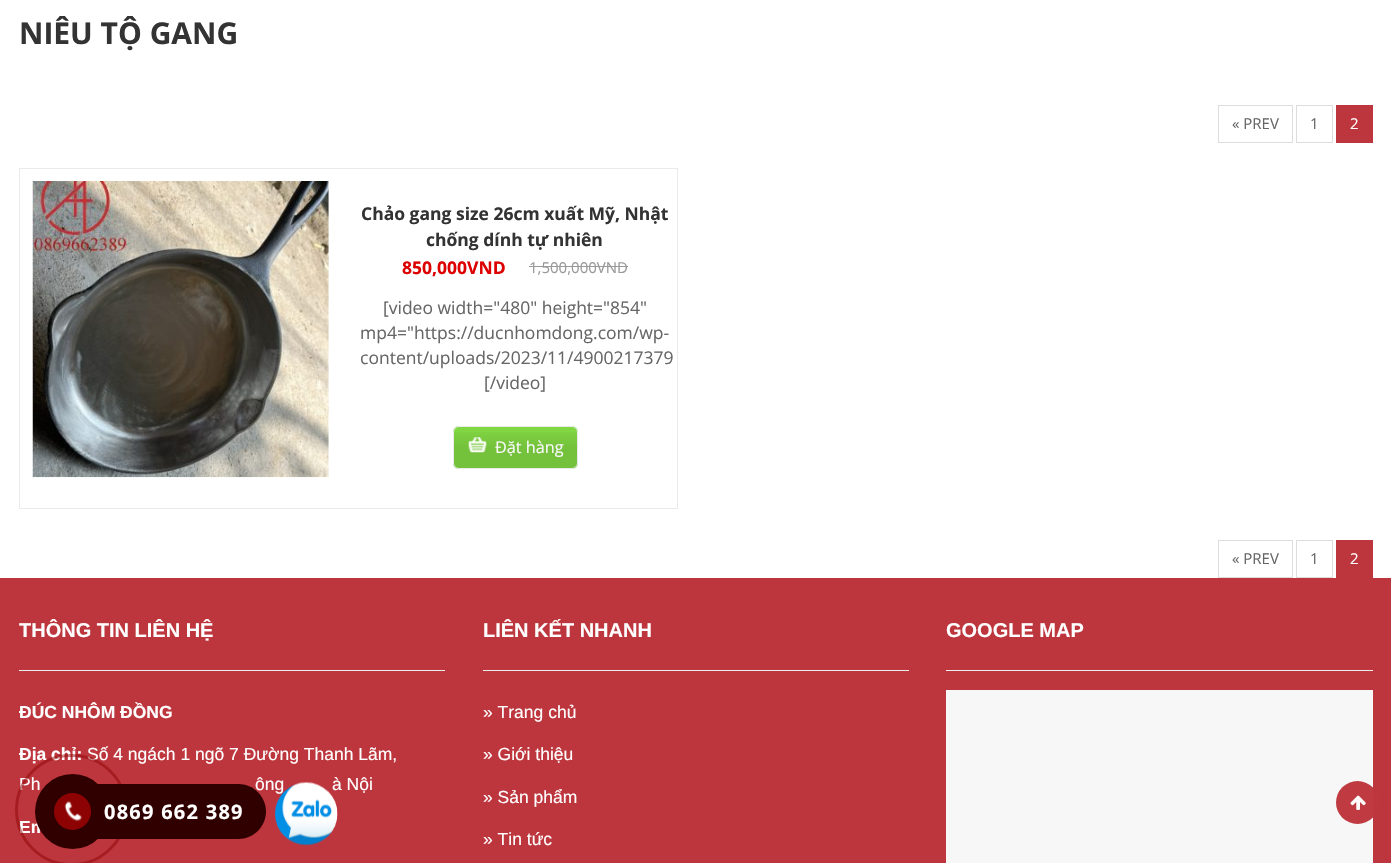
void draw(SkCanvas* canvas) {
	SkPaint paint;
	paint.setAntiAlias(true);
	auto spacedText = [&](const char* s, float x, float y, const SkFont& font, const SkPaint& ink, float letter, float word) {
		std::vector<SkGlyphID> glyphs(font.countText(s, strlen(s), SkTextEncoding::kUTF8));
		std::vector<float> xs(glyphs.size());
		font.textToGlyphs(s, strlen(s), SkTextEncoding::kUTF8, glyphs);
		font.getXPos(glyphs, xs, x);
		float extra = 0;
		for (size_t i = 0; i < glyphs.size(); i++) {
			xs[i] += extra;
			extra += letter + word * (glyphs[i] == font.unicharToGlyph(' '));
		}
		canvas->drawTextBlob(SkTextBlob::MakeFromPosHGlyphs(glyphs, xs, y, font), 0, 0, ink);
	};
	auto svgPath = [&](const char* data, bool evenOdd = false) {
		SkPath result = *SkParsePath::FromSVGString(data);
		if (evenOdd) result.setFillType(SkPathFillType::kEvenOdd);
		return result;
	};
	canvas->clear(0xffffffff);
	SkFont f1(fontMgr->matchFamilyStyle("Open Sans", SkFontStyle::Bold()), 30);
	f1.setSubpixel(true);
	paint.setColor(0xff333333);
	canvas->drawString("NIÊU TỘ GANG", 19, 44, f1, paint);
	paint.setStroke(true);
	paint.setStrokeWidth(1);
	paint.setColor(0xffdddddd);
	canvas->drawRect(SkRect::MakeXYWH(1218.5, 105.5, 74, 37), paint);
	SkFont f2(fontMgr->matchFamilyStyle("Open Sans", SkFontStyle::Normal()), 15);
	f2.setSubpixel(true);
	paint.setStroke(false);
	paint.setColor(0xff666666);
	canvas->drawString("« PREV", 1232, 129, f2, paint);
	paint.setStroke(true);
	paint.setColor(0xffdddddd);
	canvas->drawRect(SkRect::MakeXYWH(1296.5, 105.5, 36, 37), paint);
	paint.setStroke(false);
	paint.setColor(0xff666666);
	canvas->drawString("1", 1310, 129, f2, paint);
	paint.setColor(0xffbe363d);
	canvas->drawRect(SkRect::MakeXYWH(1336, 105, 37, 38), paint);
	paint.setColor(0xffffffff);
	canvas->drawString("2", 1350, 129, f2, paint);
	paint.setStroke(true);
	paint.setColor(0xffeaeaea);
	canvas->drawRect(SkRect::MakeXYWH(19.5, 168.5, 658, 340), paint);
	canvas->drawImageRect(SkImages::DeferredFromEncodedData(SkData::MakeFromFileName("img1.png")), SkRect::MakeXYWH(32, 181, 297, 297), SkSamplingOptions());
	SkFont f3(fontMgr->matchFamilyStyle("Open Sans", SkFontStyle::Bold()), 17.5);
	f3.setSubpixel(true);
	paint.setStroke(false);
	paint.setColor(0xff333333);
	canvas->drawString("Chảo gang size 26cm xuất Mỹ, Nhật", 361, 220, f3, paint);
	canvas->drawString("chống dính tự nhiên", 426, 246, f3, paint);
	paint.setColor(0xffdd0000);
	canvas->drawString("850,000VND", 402, 274, f3, paint);
	paint.setColor(0xff999999);
	canvas->drawString("1,500,000VND", 529, 273, f2, paint);
	canvas->drawRect(SkRect::MakeXYWH(529, 266, 99, 1), paint);
	SkFont f4(fontMgr->matchFamilyStyle("Open Sans", SkFontStyle::Normal()), 17.5);
	f4.setSubpixel(true);
	paint.setColor(0xff666666);
	canvas->drawString("[video width=\"480\" height=\"854\"", 383, 314, f4, paint);
	canvas->drawString("mp4=\"https://ducnhomdong.com/wp-", 360, 339, f4, paint);
	canvas->drawString("content/uploads/2023/11/4900217379", 360, 364, f4, paint);
	canvas->drawString("[/video]", 484, 389, f4, paint);
	paint.setColor(0xff81d742);
	canvas->drawRoundRect(SkRect::MakeXYWH(453, 426, 125, 43), 6, 6, paint);
	canvas->save();
	canvas->clipPath(svgPath("M459 426H572C575.5 426 578 428.5 578 432V463C578 466.5 575.5 469 572 469H459C455.5 469 453 466.5 453 463V432C453 428.5 455.5 426 459 426Z"), true);
	{
		const SkColor colors[] = {0x00000000, 0x1a000000, 0x1a000000};
		const float stops[] = {0, 0.5, 1};
		const SkPoint ends[] = {{576, 428}, {576, 468}};
		paint.setShader(SkGradientShader::MakeLinear(ends, colors, stops, 3, SkTileMode::kClamp));
		paint.setAlpha(255);
	}
	canvas->drawRect(SkRect::MakeXYWH(453, 432, 125, 36), paint);
	canvas->restore();
	paint.setStroke(true);
	paint.setShader(nullptr);
	paint.setColor(0xffeaeaea);
	canvas->drawRoundRect(SkRect::MakeXYWH(453.5, 426.5, 124, 42), 5.5, 5.5, paint);
	canvas->drawImageRect(SkImages::DeferredFromEncodedData(SkData::MakeFromFileName("img2.png")), SkRect::MakeXYWH(468, 437, 19, 16), SkSamplingOptions());
	SkFont f5(fontMgr->matchFamilyStyle("Open Sans", SkFontStyle::Normal()), 16.25);
	f5.setSubpixel(true);
	paint.setStroke(false);
	paint.setColor(0xfff9f9f9);
	canvas->drawString("Đặt hàng", 495, 453, f5, paint);
	paint.setStroke(true);
	paint.setColor(0xffdddddd);
	canvas->drawRect(SkRect::MakeXYWH(1218.5, 540.5, 74, 37), paint);
	paint.setStroke(false);
	paint.setColor(0xff666666);
	canvas->drawString("« PREV", 1232, 564, f2, paint);
	paint.setStroke(true);
	paint.setColor(0xffdddddd);
	canvas->drawRect(SkRect::MakeXYWH(1296.5, 540.5, 36, 37), paint);
	paint.setStroke(false);
	paint.setColor(0xff666666);
	canvas->drawString("1", 1310, 564, f2, paint);
	paint.setColor(0xffbe363d);
	canvas->drawRect(SkRect::MakeXYWH(1336, 540, 37, 38), paint);
	paint.setColor(0xffffffff);
	canvas->drawString("2", 1350, 564, f2, paint);
	paint.setColor(0xffbe363d);
	canvas->drawRect(SkRect::MakeXYWH(0, 578, 1391, 285), paint);
	SkFont f6(fontMgr->matchFamilyStyle("Liberation Sans", SkFontStyle::Bold()), 20);
	f6.setSubpixel(true);
	paint.setColor(0xffffffff);
	canvas->drawString("THÔNG TIN LIÊN HỆ", 19, 637, f6, paint);
	paint.setColor(0xffeeeeee);
	canvas->drawRect(SkRect::MakeXYWH(19, 670, 426, 1), paint);
	SkFont f7(fontMgr->matchFamilyStyle("Liberation Sans", SkFontStyle::Bold()), 17.5);
	f7.setSubpixel(true);
	paint.setColor(0xffffffff);
	canvas->drawString("ĐÚC NHÔM ĐỒNG", 19, 718, f7, paint);
	canvas->drawString("Địa chỉ:", 19, 760, f7, paint);
	SkFont f8(fontMgr->matchFamilyStyle("Liberation Sans", SkFontStyle::Normal()), 17.5);
	f8.setSubpixel(true);
	canvas->drawString("Số 4 ngách 1 ngõ 7 Đường Thanh Lãm,", 87, 760, f8, paint);
	canvas->drawString("Ph", 19, 790, f8, paint);
	canvas->drawString("ông", 255, 790, f8, paint);
	canvas->drawString("à Nội", 332, 790, f8, paint);
	canvas->drawString("Em", 19, 833, f7, paint);
	canvas->drawString("LIÊN KẾT NHANH", 483, 637, f6, paint);
	paint.setColor(0xffeeeeee);
	canvas->drawRect(SkRect::MakeXYWH(483, 670, 426, 1), paint);
	paint.setColor(0xffffffff);
	canvas->drawString("» Trang chủ", 483, 718, f8, paint);
	canvas->drawString("» Giới thiệu", 483, 760, f8, paint);
	canvas->drawString("» Sản phẩm", 483, 803, f8, paint);
	canvas->drawString("» Tin tức", 483, 845, f8, paint);
	canvas->drawString("GOOGLE MAP", 946, 637, f6, paint);
	paint.setColor(0xffeeeeee);
	canvas->drawRect(SkRect::MakeXYWH(946, 670, 427, 1), paint);
	paint.setColor(0xfff7f7f7);
	canvas->drawRect(SkRect::MakeXYWH(946, 690, 427, 173), paint);
	paint.setColor(0xfabe363d);
	canvas->drawCircle(1357.5, 802.5, 21.5, paint);
	canvas->drawImageRect(SkImages::DeferredFromEncodedData(SkData::MakeFromFileName("img3.png")), SkRect::MakeXYWH(1350, 795, 16, 15), SkSamplingOptions());
	paint.setStroke(true);
	paint.setStrokeWidth(3);
	paint.setColor(0x808d0303);
	canvas->drawRoundRect(SkRect::MakeXYWH(16.5, 755.5, 110, 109), 54.5, 54.5, paint);
	paint.setStroke(false);
	paint.setColor(0xff300000);
	canvas->drawCircle(72.5, 811.5, 37.5, paint);
	paint.setColor(0xff8d0303);
	canvas->drawCircle(72.5, 811.5, 18.5, paint);
	canvas->drawImageRect(SkImages::DeferredFromEncodedData(SkData::MakeFromFileName("img4.png")), SkRect::MakeXYWH(64, 801, 18, 21), SkSamplingOptions());
	paint.setColor(0xff300000);
	canvas->drawPath(svgPath("M98 784H238.5C253.5 784 266 796.5 266 811.5C266 826.5 253.5 839 238.5 839H98Z"), paint);
	SkFont f9(fontMgr->matchFamilyStyle("Open Sans", SkFontStyle::Bold()), 20);
	f9.setSubpixel(true);
	paint.setColor(0xffffffff);
	spacedText("0869 662 389", 104, 819, f9, paint, 1.25, 0);
	canvas->drawImageRect(SkImages::DeferredFromEncodedData(SkData::MakeFromFileName("img5.png")), SkRect::MakeXYWH(275, 782, 63, 64), SkSamplingOptions());
}
